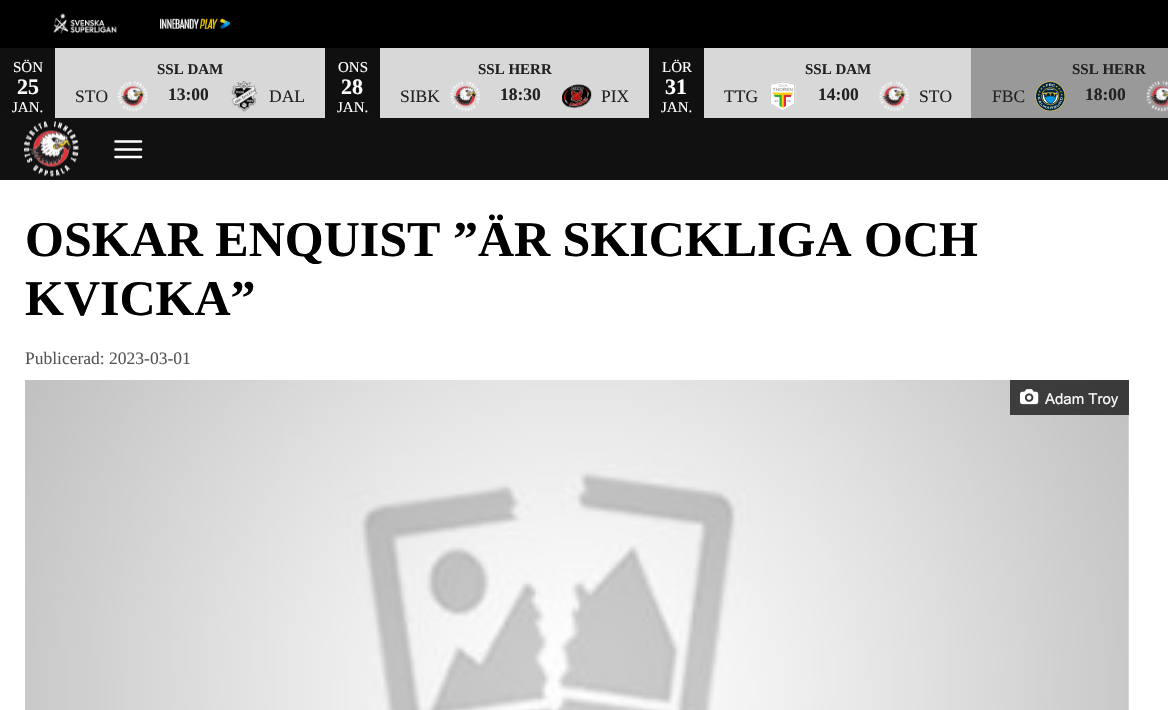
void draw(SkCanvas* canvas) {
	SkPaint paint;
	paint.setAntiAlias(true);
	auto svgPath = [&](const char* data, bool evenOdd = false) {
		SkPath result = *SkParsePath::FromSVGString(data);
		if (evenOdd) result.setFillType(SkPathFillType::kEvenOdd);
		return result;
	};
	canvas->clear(0xffffffff);
	paint.setColor(0xff000000);
	canvas->drawRect(SkRect::MakeXYWH(0, 0, 1168, 48), paint);
	canvas->drawImageRect(SkImages::DeferredFromEncodedData(SkData::MakeFromFileName("img1.png")), SkRect::MakeXYWH(53, 13, 64, 21), SkSamplingOptions());
	canvas->drawImageRect(SkImages::DeferredFromEncodedData(SkData::MakeFromFileName("img2.png")), SkRect::MakeXYWH(160, 18, 70, 11), SkSamplingOptions());
	paint.setColor(0xffd8d8d8);
	canvas->drawRect(SkRect::MakeXYWH(55, 48, 916, 70), paint);
	paint.setColor(0xff101010);
	canvas->drawRect(SkRect::MakeXYWH(0, 48, 55, 70), paint);
	SkFont f1(fontMgr->matchFamilyStyle("Liberation Serif", SkFontStyle::Normal()), 15);
	f1.setSubpixel(true);
	paint.setColor(0xffffffff);
	canvas->drawString("SÖN", 13, 72, f1, paint);
	SkFont f2(fontMgr->matchFamilyStyle("Liberation Serif", SkFontStyle::Bold()), 22);
	f2.setSubpixel(true);
	canvas->drawString("25", 17, 94, f2, paint);
	canvas->drawString("JAN.", 12, 112, f1, paint);
	SkFont f3(fontMgr->matchFamilyStyle("Liberation Serif", SkFontStyle::Bold()), 15);
	f3.setSubpixel(true);
	paint.setColor(0xff222222);
	canvas->drawString("SSL DAM", 157, 74, f3, paint);
	SkFont f4(fontMgr->matchFamilyStyle("Liberation Serif", SkFontStyle::Normal()), 17.5);
	f4.setSubpixel(true);
	canvas->drawString("STO", 75, 102, f4, paint);
	canvas->drawImageRect(SkImages::DeferredFromEncodedData(SkData::MakeFromFileName("img3.png")), SkRect::MakeXYWH(117, 81, 31, 31), SkSamplingOptions());
	SkFont f5(fontMgr->matchFamilyStyle("Liberation Serif", SkFontStyle::Bold()), 17.5);
	f5.setSubpixel(true);
	canvas->drawString("13:00", 168, 100, f5, paint);
	canvas->drawImageRect(SkImages::DeferredFromEncodedData(SkData::MakeFromFileName("img4.png")), SkRect::MakeXYWH(231, 81, 26, 31), SkSamplingOptions());
	canvas->drawString("DAL", 269, 102, f4, paint);
	paint.setColor(0xff101010);
	canvas->drawRect(SkRect::MakeXYWH(325, 48, 55, 70), paint);
	paint.setColor(0xffffffff);
	canvas->drawString("ONS", 338, 72, f1, paint);
	canvas->drawString("28", 341, 94, f2, paint);
	canvas->drawString("JAN.", 337, 112, f1, paint);
	paint.setColor(0xff222222);
	canvas->drawString("SSL HERR", 478, 74, f3, paint);
	canvas->drawString("SIBK", 400, 102, f4, paint);
	canvas->drawImageRect(SkImages::DeferredFromEncodedData(SkData::MakeFromFileName("img5.png")), SkRect::MakeXYWH(450, 81, 30, 31), SkSamplingOptions());
	canvas->drawString("18:30", 500, 100, f5, paint);
	canvas->drawImageRect(SkImages::DeferredFromEncodedData(SkData::MakeFromFileName("img6.png")), SkRect::MakeXYWH(562, 84, 30, 25), SkSamplingOptions());
	canvas->drawString("PIX", 601, 102, f4, paint);
	paint.setColor(0xff101010);
	canvas->drawRect(SkRect::MakeXYWH(649, 48, 55, 70), paint);
	paint.setColor(0xffffffff);
	canvas->drawString("LÖR", 662, 72, f1, paint);
	canvas->drawString("31", 665, 94, f2, paint);
	canvas->drawString("JAN.", 661, 112, f1, paint);
	paint.setColor(0xff222222);
	canvas->drawString("SSL DAM", 805, 74, f3, paint);
	canvas->drawString("TTG", 724, 102, f4, paint);
	canvas->drawImageRect(SkImages::DeferredFromEncodedData(SkData::MakeFromFileName("img7.png")), SkRect::MakeXYWH(770, 81, 26, 30), SkSamplingOptions());
	canvas->drawString("14:00", 818, 100, f5, paint);
	canvas->drawImageRect(SkImages::DeferredFromEncodedData(SkData::MakeFromFileName("img8.png")), SkRect::MakeXYWH(879, 81, 30, 31), SkSamplingOptions());
	canvas->drawString("STO", 919, 102, f4, paint);
	paint.setColor(0xff999999);
	canvas->drawRect(SkRect::MakeXYWH(971, 48, 197, 70), paint);
	paint.setColor(0xff222222);
	canvas->drawString("SSL HERR", 1072, 74, f3, paint);
	canvas->drawString("FBC", 992, 102, f4, paint);
	canvas->drawImageRect(SkImages::DeferredFromEncodedData(SkData::MakeFromFileName("img9.png")), SkRect::MakeXYWH(1035, 81, 30, 30), SkSamplingOptions());
	canvas->drawString("18:00", 1085, 100, f5, paint);
	canvas->drawImageRect(SkImages::DeferredFromEncodedData(SkData::MakeFromFileName("img10.png")), SkRect::MakeXYWH(1146, 81, 22, 31), SkSamplingOptions());
	paint.setColor(0xff111111);
	canvas->drawRect(SkRect::MakeXYWH(0, 118, 1168, 62), paint);
	canvas->drawImageRect(SkImages::DeferredFromEncodedData(SkData::MakeFromFileName("img11.png")), SkRect::MakeXYWH(24, 121, 55, 56), SkSamplingOptions());
	paint.setStroke(true);
	paint.setStrokeWidth(2.6);
	paint.setStrokeCap(SkPaint::kRound_Cap);
	paint.setStrokeJoin(SkPaint::kRound_Join);
	paint.setColor(0xffffffff);
	canvas->drawPath(svgPath("M115.5 157H141M115.5 149.5H141M115.5 141.5H141"), paint);
	SkFont f6(fontMgr->matchFamilyStyle("Liberation Serif", SkFontStyle::Bold()), 50);
	f6.setSubpixel(true);
	paint.setStroke(false);
	paint.setColor(0xff000000);
	canvas->drawString("OSKAR ENQUIST ”ÄR SKICKLIGA OCH", 25, 256, f6, paint);
	canvas->drawString("KVICKA”", 25, 315, f6, paint);
	paint.setColor(0xff555555);
	canvas->drawString("Publicerad: 2023-03-01", 25, 364, f4, paint);
	canvas->drawImageRect(SkImages::DeferredFromEncodedData(SkData::MakeFromFileName("img12.png")), SkRect::MakeXYWH(25, 380, 1104, 330), SkSamplingOptions());
	paint.setColor(0xb3000000);
	canvas->drawRect(SkRect::MakeXYWH(1010, 380, 119, 35), paint);
	canvas->drawImageRect(SkImages::DeferredFromEncodedData(SkData::MakeFromFileName("img13.png")), SkRect::MakeXYWH(1020, 389, 19, 16), SkSamplingOptions());
	SkFont f7(fontMgr->matchFamilyStyle("Arial", SkFontStyle::Normal()), 15);
	f7.setSubpixel(true);
	paint.setColor(0xffffffff);
	canvas->drawString("Adam Troy", 1045, 404, f7, paint);
}
